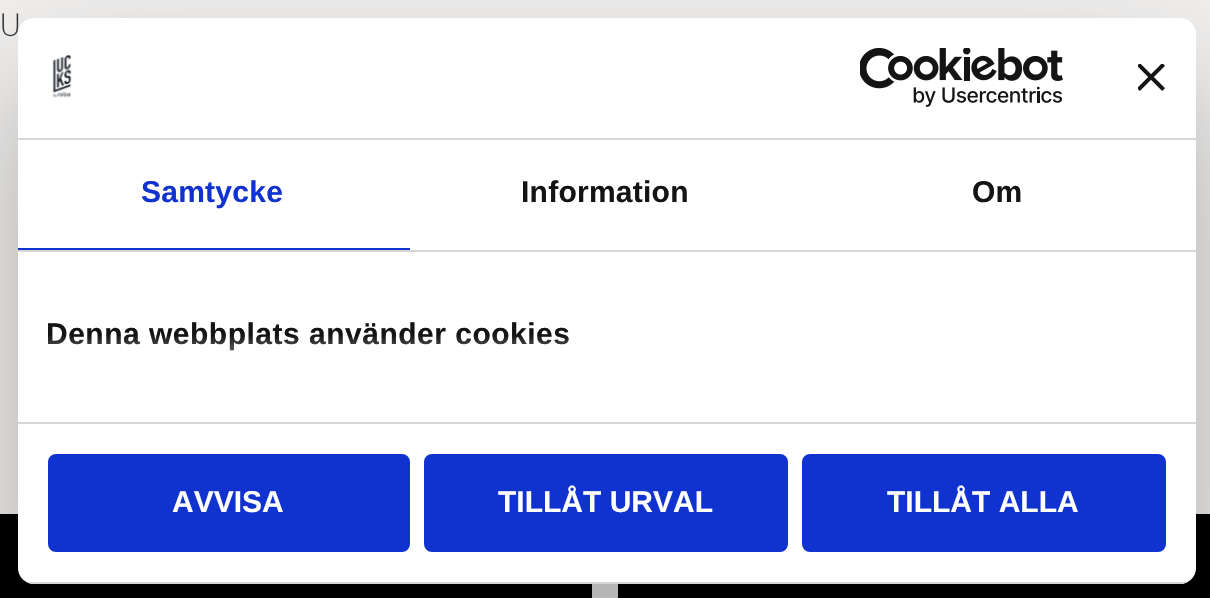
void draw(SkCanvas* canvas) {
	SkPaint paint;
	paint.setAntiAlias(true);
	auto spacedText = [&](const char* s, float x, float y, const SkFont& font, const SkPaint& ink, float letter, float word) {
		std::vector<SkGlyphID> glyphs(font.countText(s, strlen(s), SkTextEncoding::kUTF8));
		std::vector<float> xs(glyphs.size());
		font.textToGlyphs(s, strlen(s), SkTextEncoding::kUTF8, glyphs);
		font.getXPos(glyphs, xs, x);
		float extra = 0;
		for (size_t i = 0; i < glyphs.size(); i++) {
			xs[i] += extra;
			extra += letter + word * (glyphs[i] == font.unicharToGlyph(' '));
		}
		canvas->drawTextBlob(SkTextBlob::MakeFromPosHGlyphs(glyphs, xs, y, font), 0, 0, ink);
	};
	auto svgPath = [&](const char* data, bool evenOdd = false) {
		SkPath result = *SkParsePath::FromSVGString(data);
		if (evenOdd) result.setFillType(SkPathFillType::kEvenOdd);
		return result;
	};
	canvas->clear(0xfff2f1f0);
	SkFont f1(fontMgr->matchFamilyStyle("Poppins", SkFontStyle(200, SkFontStyle::kNormal_Width, SkFontStyle::kUpright_Slant)), 32);
	f1.setSubpixel(true);
	paint.setColor(0xff373737);
	canvas->drawString("U", 0, 36, f1, paint);
	paint.setColor(0xff000000);
	canvas->drawRect(SkRect::MakeXYWH(0, 514, 592, 84), paint);
	canvas->drawRect(SkRect::MakeXYWH(618, 514, 592, 84), paint);
	paint.setColor(0x4d000000);
	paint.setMaskFilter(SkMaskFilter::MakeBlur(kNormal_SkBlurStyle, 68));
	canvas->drawRoundRect(SkRect::MakeXYWH(18, 82, 1178, 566), 16, 16, paint);
	paint.setMaskFilter(nullptr);
	paint.setColor(0xffffffff);
	canvas->drawRoundRect(SkRect::MakeXYWH(18, 18, 1178, 566), 16, 16, paint);
	paint.setColor(0xffd6d6d6);
	canvas->drawRect(SkRect::MakeXYWH(18, 138, 1178, 2), paint);
	canvas->drawImageRect(SkImages::DeferredFromEncodedData(SkData::MakeFromFileName("img1.png")), SkRect::MakeXYWH(52, 55, 20, 43), SkSamplingOptions());
	canvas->drawImageRect(SkImages::DeferredFromEncodedData(SkData::MakeFromFileName("img2.png")), SkRect::MakeXYWH(860, 48, 203, 59), SkSamplingOptions());
	canvas->drawImageRect(SkImages::DeferredFromEncodedData(SkData::MakeFromFileName("img3.png")), SkRect::MakeXYWH(1138, 64, 27, 27), SkSamplingOptions());
	canvas->drawRect(SkRect::MakeXYWH(18, 250, 1178, 2), paint);
	paint.setColor(0xff1032cf);
	canvas->drawRect(SkRect::MakeXYWH(18, 248, 392, 2), paint);
	SkFont f2(fontMgr->matchFamilyStyle("Liberation Sans", SkFontStyle::Bold()), 30);
	f2.setSubpixel(true);
	spacedText("Samtycke", 141, 202, f2, paint, 0.25, 0);
	paint.setColor(0xff141414);
	spacedText("Information", 521, 202, f2, paint, 0.25, 0);
	spacedText("Om", 972, 202, f2, paint, 0.25, 0);
	paint.setColor(0xffd6d6d6);
	canvas->drawRect(SkRect::MakeXYWH(18, 422, 1178, 2), paint);
	paint.setColor(0xff141414);
	spacedText("Denna webbplats använder cookies", 46, 344, f2, paint, 0.5, 0);
	{
		const SkColor colors[] = {0xffffffff, 0xccffffff, 0x00ffffff};
		const float stops[] = {0, 0.5, 1};
		const SkPoint ends[] = {{593, 421}, {593, 335}};
		paint.setShader(SkGradientShader::MakeLinear(ends, colors, stops, 3, SkTileMode::kClamp));
		paint.setAlpha(255);
	}
	canvas->drawRect(SkRect::MakeXYWH(48, 336, 521, 15), paint);
	canvas->save();
	canvas->clipPath(svgPath("M34 18H1180C1189 18 1196 25 1196 34V568C1196 577 1189 584 1180 584H34C25 584 18 577 18 568V34C18 25 25 18 34 18Z"), true);
	paint.setShader(nullptr);
	paint.setColor(0xffd6d6d6);
	canvas->drawRect(SkRect::MakeXYWH(18, 582, 1178, 2), paint);
	canvas->restore();
	paint.setColor(0xff1032cf);
	canvas->drawRoundRect(SkRect::MakeXYWH(50, 456, 358, 94), 6, 6, paint);
	paint.setStroke(true);
	paint.setStrokeWidth(4);
	canvas->drawRoundRect(SkRect::MakeXYWH(50, 456, 358, 94), 6, 6, paint);
	paint.setStroke(false);
	paint.setColor(0xffffffff);
	canvas->drawString("AVVISA", 172, 512, f2, paint);
	paint.setColor(0xff1032cf);
	canvas->drawRoundRect(SkRect::MakeXYWH(426, 456, 360, 94), 6, 6, paint);
	paint.setStroke(true);
	canvas->drawRoundRect(SkRect::MakeXYWH(426, 456, 360, 94), 6, 6, paint);
	paint.setStroke(false);
	paint.setColor(0xffffffff);
	canvas->drawString("TILLÅT URVAL", 498, 512, f2, paint);
	paint.setColor(0xff1032cf);
	canvas->drawRoundRect(SkRect::MakeXYWH(804, 456, 360, 94), 6, 6, paint);
	paint.setStroke(true);
	canvas->drawRoundRect(SkRect::MakeXYWH(804, 456, 360, 94), 6, 6, paint);
	paint.setStroke(false);
	paint.setColor(0xffffffff);
	canvas->drawString("TILLÅT ALLA", 887, 512, f2, paint);
}
